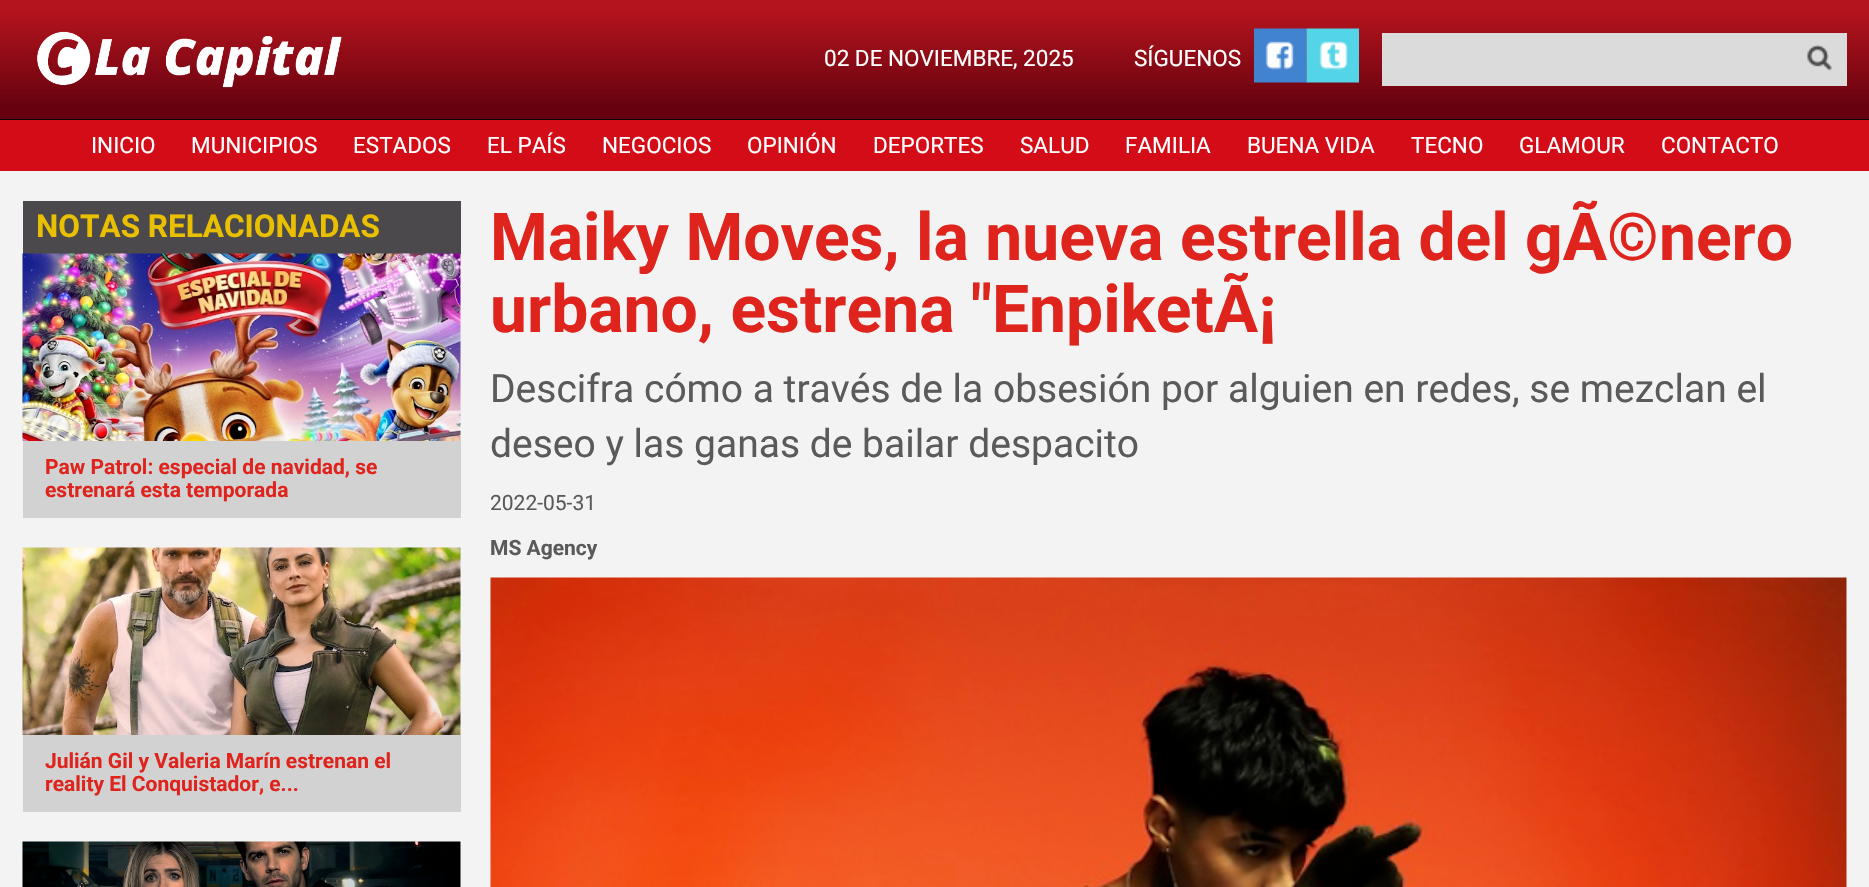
void draw(SkCanvas* canvas) {
	SkPaint paint;
	paint.setAntiAlias(true);
	canvas->clear(0xfff3f3f3);
	{
		const SkColor colors[] = {0xff66020f, 0xffb3141d};
		const float stops[] = {0.1, 0.9};
		const SkPoint ends[] = {{935, 119}, {935, 0}};
		paint.setShader(SkGradientShader::MakeLinear(ends, colors, stops, 2, SkTileMode::kClamp));
		paint.setAlpha(255);
	}
	canvas->drawRect(SkRect::MakeXYWH(0, 0, 1869, 119), paint);
	paint.setShader(nullptr);
	paint.setColor(0xff080808);
	canvas->drawRect(SkRect::MakeXYWH(0, 119, 1869, 1), paint);
	canvas->drawImageRect(SkImages::DeferredFromEncodedData(SkData::MakeFromFileName("img1.png")), SkRect::MakeXYWH(37, 31, 305, 57), SkSamplingOptions());
	SkFont f1(fontMgr->matchFamilyStyle("Roboto", SkFontStyle::Normal()), 22.5);
	f1.setSubpixel(true);
	paint.setColor(0xffffffff);
	canvas->drawString("02 DE NOVIEMBRE, 2025", 824, 66, f1, paint);
	canvas->drawString("SÍGUENOS", 1134, 66, f1, paint);
	canvas->drawImageRect(SkImages::DeferredFromEncodedData(SkData::MakeFromFileName("img2.png")), SkRect::MakeXYWH(1254, 28, 53, 55), SkSamplingOptions());
	canvas->drawImageRect(SkImages::DeferredFromEncodedData(SkData::MakeFromFileName("img3.png")), SkRect::MakeXYWH(1306, 28, 53, 55), SkSamplingOptions());
	paint.setColor(0xffdbdbdb);
	canvas->drawRect(SkRect::MakeXYWH(1382, 33, 465, 53), paint);
	canvas->drawImageRect(SkImages::DeferredFromEncodedData(SkData::MakeFromFileName("img4.png")), SkRect::MakeXYWH(1807, 45, 25, 26), SkSamplingOptions());
	paint.setColor(0xffd30c17);
	canvas->drawRect(SkRect::MakeXYWH(0, 120, 1869, 51), paint);
	paint.setColor(0xffffffff);
	canvas->drawString("INICIO", 91, 153, f1, paint);
	canvas->drawString("MUNICIPIOS", 191, 153, f1, paint);
	canvas->drawString("ESTADOS", 353, 153, f1, paint);
	canvas->drawString("EL PAÍS", 487, 153, f1, paint);
	canvas->drawString("NEGOCIOS", 602, 153, f1, paint);
	canvas->drawString("OPINIÓN", 747, 153, f1, paint);
	canvas->drawString("DEPORTES", 873, 153, f1, paint);
	canvas->drawString("SALUD", 1020, 153, f1, paint);
	canvas->drawString("FAMILIA", 1125, 153, f1, paint);
	canvas->drawString("BUENA VIDA", 1247, 153, f1, paint);
	canvas->drawString("TECNO", 1411, 153, f1, paint);
	canvas->drawString("GLAMOUR", 1519, 153, f1, paint);
	canvas->drawString("CONTACTO", 1661, 153, f1, paint);
	paint.setColor(0xff4c494c);
	canvas->drawRect(SkRect::MakeXYWH(23, 201, 438, 53), paint);
	SkFont f2(fontMgr->matchFamilyStyle("Roboto", SkFontStyle::Bold()), 31.5);
	f2.setSubpixel(true);
	paint.setColor(0xffe9c000);
	canvas->drawString("NOTAS RELACIONADAS", 36, 237, f2, paint);
	canvas->drawImageRect(SkImages::DeferredFromEncodedData(SkData::MakeFromFileName("img5.png")), SkRect::MakeXYWH(22, 253, 439, 188), SkSamplingOptions());
	paint.setColor(0xffd2d2d2);
	canvas->drawRect(SkRect::MakeXYWH(23, 441, 438, 77), paint);
	SkFont f3(fontMgr->matchFamilyStyle("Roboto", SkFontStyle::Bold()), 21);
	f3.setSubpixel(true);
	paint.setColor(0xffde241c);
	canvas->drawString("Paw Patrol: especial de navidad, se", 45, 474, f3, paint);
	canvas->drawString("estrenará esta temporada", 45, 497, f3, paint);
	canvas->drawImageRect(SkImages::DeferredFromEncodedData(SkData::MakeFromFileName("img6.png")), SkRect::MakeXYWH(22, 547, 439, 188), SkSamplingOptions());
	paint.setColor(0xffd2d2d2);
	canvas->drawRect(SkRect::MakeXYWH(23, 735, 438, 77), paint);
	paint.setColor(0xffde241c);
	canvas->drawString("Julián Gil y Valeria Marín estrenan el", 45, 768, f3, paint);
	canvas->drawString("reality El Conquistador, e...", 45, 791, f3, paint);
	canvas->drawImageRect(SkImages::DeferredFromEncodedData(SkData::MakeFromFileName("img7.png")), SkRect::MakeXYWH(22, 841, 439, 46), SkSamplingOptions());
	SkFont f4(fontMgr->matchFamilyStyle("Roboto", SkFontStyle::Bold()), 66);
	f4.setSubpixel(true);
	canvas->drawString("Maiky Moves, la nueva estrella del gÃ©nero", 490, 260, f4, paint);
	canvas->drawString("urbano, estrena \"EnpiketÃ¡", 490, 332, f4, paint);
	SkFont f5(fontMgr->matchFamilyStyle("Roboto", SkFontStyle::Normal()), 39);
	f5.setSubpixel(true);
	paint.setColor(0xff5a5a5a);
	canvas->drawString("Descifra cómo a través de la obsesión por alguien en redes, se mezclan el", 490, 402, f5, paint);
	canvas->drawString("deseo y las ganas de bailar despacito", 490, 457, f5, paint);
	SkFont f6(fontMgr->matchFamilyStyle("Roboto", SkFontStyle::Normal()), 21);
	f6.setSubpixel(true);
	canvas->drawString("2022-05-31", 490, 510, f6, paint);
	canvas->drawString("MS Agency", 490, 555, f3, paint);
	canvas->drawImageRect(SkImages::DeferredFromEncodedData(SkData::MakeFromFileName("img8.png")), SkRect::MakeXYWH(490, 577, 1357, 310), SkSamplingOptions());
}
